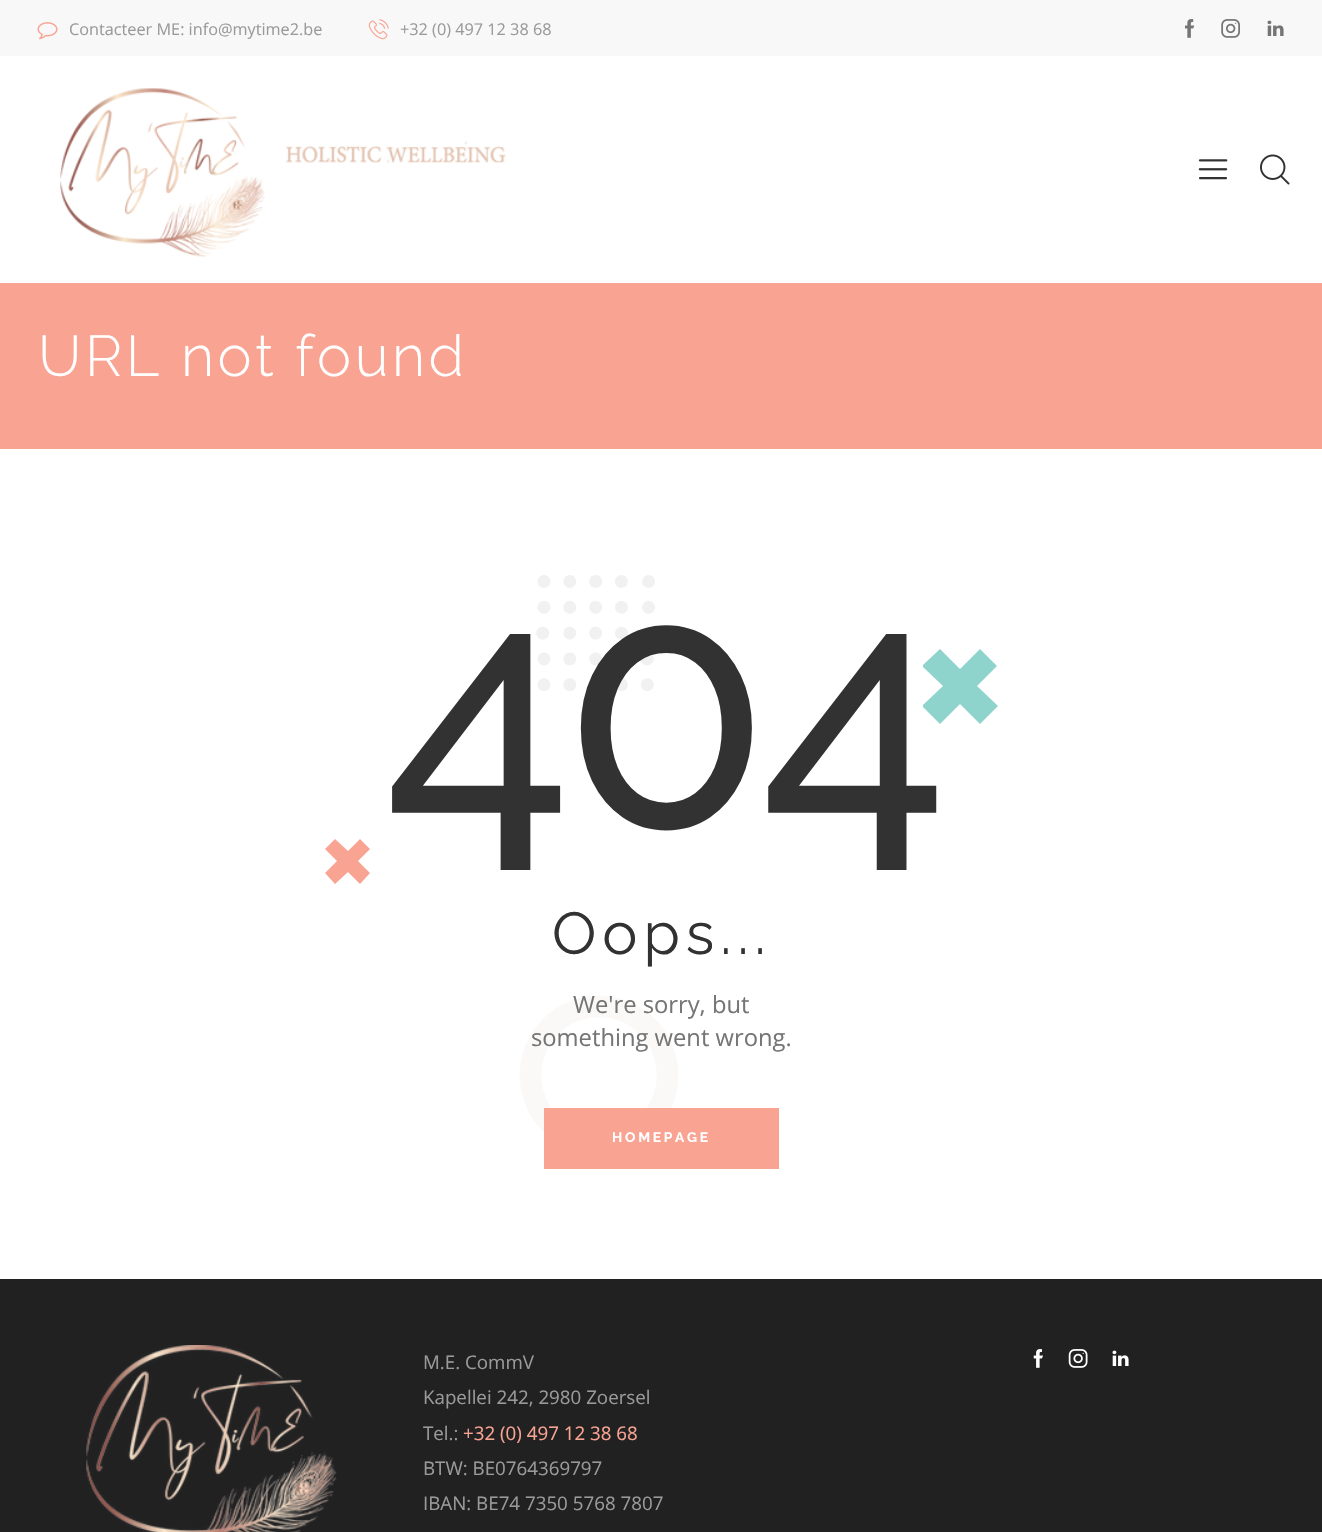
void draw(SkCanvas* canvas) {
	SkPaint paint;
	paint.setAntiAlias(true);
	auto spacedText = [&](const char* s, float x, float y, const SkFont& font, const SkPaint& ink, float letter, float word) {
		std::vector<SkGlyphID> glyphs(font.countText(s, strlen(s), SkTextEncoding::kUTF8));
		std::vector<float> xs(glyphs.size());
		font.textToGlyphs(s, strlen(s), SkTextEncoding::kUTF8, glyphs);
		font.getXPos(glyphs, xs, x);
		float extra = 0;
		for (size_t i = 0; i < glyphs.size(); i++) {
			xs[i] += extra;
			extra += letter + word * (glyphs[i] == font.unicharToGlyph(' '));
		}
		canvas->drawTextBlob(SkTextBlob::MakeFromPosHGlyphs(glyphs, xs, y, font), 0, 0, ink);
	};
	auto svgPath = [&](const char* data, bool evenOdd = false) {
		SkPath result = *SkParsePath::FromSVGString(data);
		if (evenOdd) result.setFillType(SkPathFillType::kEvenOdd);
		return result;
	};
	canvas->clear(0xffffffff);
	paint.setColor(0xfff8f8f8);
	canvas->drawRect(SkRect::MakeXYWH(0, 0, 1322, 56), paint);
	canvas->drawImageRect(SkImages::DeferredFromEncodedData(SkData::MakeFromFileName("img1.png")), SkRect::MakeXYWH(37, 22, 21, 18), SkSamplingOptions());
	SkFont f1(fontMgr->matchFamilyStyle("Open Sans", SkFontStyle::Normal()), 16.25);
	f1.setSubpixel(true);
	paint.setColor(0xff9a9a9a);
	canvas->drawString("Contacteer ME: info@mytime2.be", 69, 35, f1, paint);
	canvas->drawImageRect(SkImages::DeferredFromEncodedData(SkData::MakeFromFileName("img2.png")), SkRect::MakeXYWH(368, 19, 21, 21), SkSamplingOptions());
	canvas->drawString("+32 (0) 497 12 38 68", 400, 35, f1, paint);
	canvas->drawImageRect(SkImages::DeferredFromEncodedData(SkData::MakeFromFileName("img3.png")), SkRect::MakeXYWH(1185, 19, 10, 19), SkSamplingOptions());
	canvas->drawImageRect(SkImages::DeferredFromEncodedData(SkData::MakeFromFileName("img4.png")), SkRect::MakeXYWH(1221, 19, 19, 19), SkSamplingOptions());
	canvas->drawImageRect(SkImages::DeferredFromEncodedData(SkData::MakeFromFileName("img5.png")), SkRect::MakeXYWH(1267, 20, 17, 16), SkSamplingOptions());
	canvas->drawImageRect(SkImages::DeferredFromEncodedData(SkData::MakeFromFileName("img6.png")), SkRect::MakeXYWH(60, 88, 446, 170), SkSamplingOptions());
	canvas->drawImageRect(SkImages::DeferredFromEncodedData(SkData::MakeFromFileName("img7.png")), SkRect::MakeXYWH(1198, 159, 30, 21), SkSamplingOptions());
	canvas->drawImageRect(SkImages::DeferredFromEncodedData(SkData::MakeFromFileName("img8.png")), SkRect::MakeXYWH(1260, 154, 30, 31), SkSamplingOptions());
	paint.setColor(0xfff9a392);
	canvas->drawRect(SkRect::MakeXYWH(0, 283, 1322, 166), paint);
	SkFont f2(fontMgr->matchFamilyStyle("Raleway", SkFontStyle(300, SkFontStyle::kNormal_Width, SkFontStyle::kUpright_Slant)), 57.5);
	f2.setSubpixel(true);
	paint.setColor(0xffffffff);
	spacedText("URL not found", 38, 376, f2, paint, 3.5, 0);
	canvas->drawImageRect(SkImages::DeferredFromEncodedData(SkData::MakeFromFileName("img9.png")), SkRect::MakeXYWH(536, 575, 119, 116), SkSamplingOptions());
	canvas->save();
	canvas->clipRect(SkRect::MakeXYWH(923, 649, 75, 75));
	paint.setColor(0xff8ed4cc);
	canvas->drawPath(svgPath("M922 706L943 686L922 666L940 649L960 669L980 649L997 666L977 686L998 706L980 724L960 704L940 724Z"), paint);
	canvas->restore();
	paint.setColor(0xfff9a392);
	canvas->drawPath(svgPath("M325 873L337 861L325 849L335 839L348 851L360 839L370 849L358 861L370 873L360 884L348 872L335 884Z"), paint);
	paint.setStroke(true);
	paint.setStrokeWidth(21.6);
	paint.setColor(0xfffbf9f8);
	canvas->drawCircle(599, 1075, 68.5, paint);
	SkFont f3(fontMgr->matchFamilyStyle("Raleway", SkFontStyle(500, SkFontStyle::kNormal_Width, SkFontStyle::kUpright_Slant)), 338);
	f3.setSubpixel(true);
	paint.setStroke(false);
	paint.setColor(0xff323232);
	spacedText("404", 384, 827, f3, paint, -10, 0);
	SkFont f4(fontMgr->matchFamilyStyle("Raleway", SkFontStyle::Normal()), 59);
	f4.setSubpixel(true);
	spacedText("Oops...", 552, 954, f4, paint, 6, 0);
	SkFont f5(fontMgr->matchFamilyStyle("Open Sans", SkFontStyle::Normal()), 23.75);
	f5.setSubpixel(true);
	paint.setColor(0xff757575);
	canvas->drawString("We're sorry, but", 573, 1013, f5, paint);
	canvas->drawString("something went wrong.", 531, 1046, f5, paint);
	paint.setColor(0xfff9a392);
	canvas->drawRect(SkRect::MakeXYWH(544, 1108, 235, 61), paint);
	SkFont f6(fontMgr->matchFamilyStyle("Raleway", SkFontStyle::Bold()), 13.75);
	f6.setSubpixel(true);
	paint.setColor(0xffffffff);
	spacedText("HOMEPAGE", 612, 1142, f6, paint, 2.75, 0);
	paint.setColor(0xff212121);
	canvas->drawRect(SkRect::MakeXYWH(0, 1279, 1322, 253), paint);
	canvas->drawImageRect(SkImages::DeferredFromEncodedData(SkData::MakeFromFileName("img10.png")), SkRect::MakeXYWH(86, 1345, 251, 187), SkSamplingOptions());
	SkFont f7(fontMgr->matchFamilyStyle("Open Sans", SkFontStyle::Normal()), 18.75);
	f7.setSubpixel(true);
	paint.setColor(0xff9a9a9a);
	canvas->drawString("M.E. CommV", 423, 1369, f7, paint);
	canvas->drawString("Kapellei 242, 2980 Zoersel", 423, 1404, f7, paint);
	canvas->drawString("Tel.:", 423, 1440, f7, paint);
	paint.setColor(0xfff9a392);
	canvas->drawString("+32 (0) 497 12 38 68", 463, 1440, f7, paint);
	paint.setColor(0xff9a9a9a);
	canvas->drawString("BTW: BE0764369797", 423, 1475, f7, paint);
	canvas->drawString("IBAN: BE74 7350 5768 7807", 423, 1510, f7, paint);
	canvas->drawImageRect(SkImages::DeferredFromEncodedData(SkData::MakeFromFileName("img11.png")), SkRect::MakeXYWH(1033, 1349, 10, 19), SkSamplingOptions());
	canvas->drawImageRect(SkImages::DeferredFromEncodedData(SkData::MakeFromFileName("img12.png")), SkRect::MakeXYWH(1068, 1349, 20, 19), SkSamplingOptions());
	canvas->drawImageRect(SkImages::DeferredFromEncodedData(SkData::MakeFromFileName("img13.png")), SkRect::MakeXYWH(1112, 1350, 17, 16), SkSamplingOptions());
}
